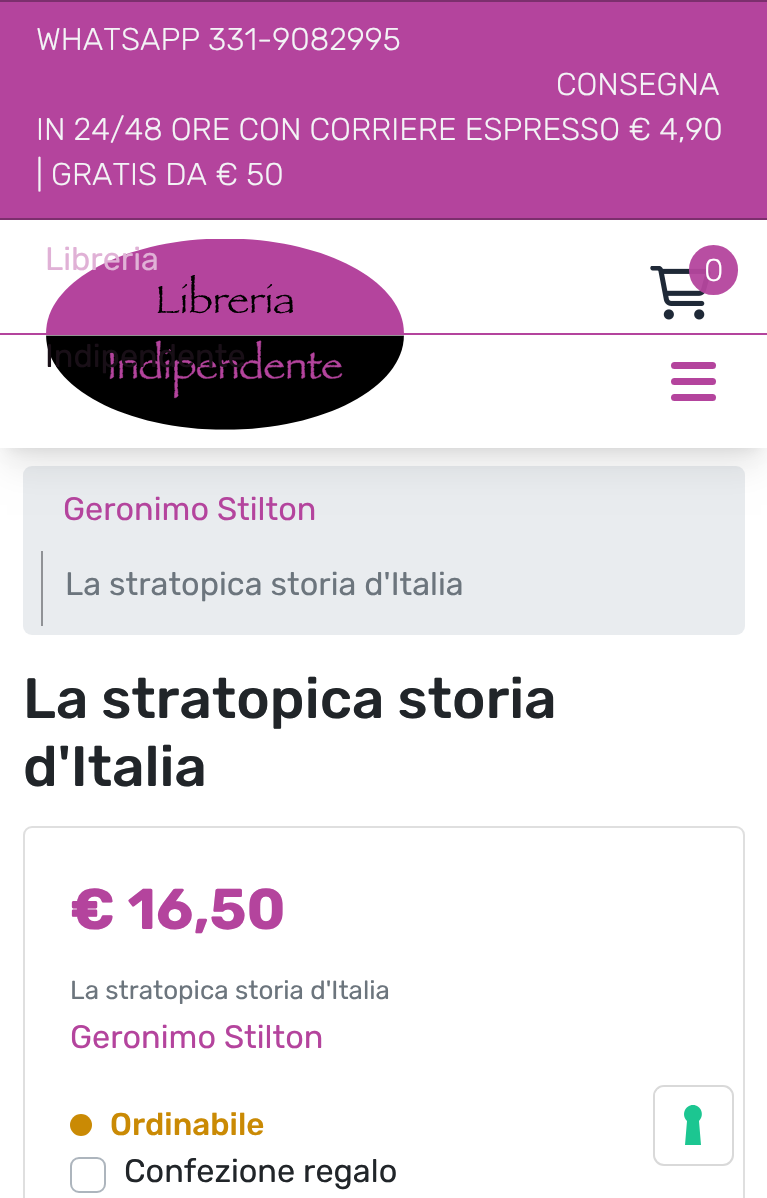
void draw(SkCanvas* canvas) {
	SkPaint paint;
	paint.setAntiAlias(true);
	auto svgPath = [&](const char* data, bool evenOdd = false) {
		SkPath result = *SkParsePath::FromSVGString(data);
		if (evenOdd) result.setFillType(SkPathFillType::kEvenOdd);
		return result;
	};
	canvas->clear(0xffffffff);
	paint.setColor(0xffe9ecef);
	canvas->drawRoundRect(SkRect::MakeXYWH(23, 466, 722, 169), 9, 9, paint);
	paint.setColor(0x1a000000);
	paint.setMaskFilter(SkMaskFilter::MakeBlur(kNormal_SkBlurStyle, 7));
	canvas->drawRect(SkRect::MakeXYWH(9, 18, 749, 430), paint);
	paint.setMaskFilter(nullptr);
	paint.setMaskFilter(SkMaskFilter::MakeBlur(kNormal_SkBlurStyle, 17));
	canvas->drawRect(SkRect::MakeXYWH(7, 29, 754, 435), paint);
	paint.setMaskFilter(nullptr);
	paint.setColor(0xffffffff);
	canvas->drawRect(SkRect::MakeXYWH(0, 220, 767, 228), paint);
	paint.setColor(0xffb4449d);
	canvas->drawRect(SkRect::MakeXYWH(0, 2, 767, 216), paint);
	paint.setColor(0xff7c2f6d);
	canvas->drawRect(SkRect::MakeXYWH(0, 0, 767, 2), paint);
	canvas->drawRect(SkRect::MakeXYWH(0, 218, 767, 2), paint);
	SkFont f1(fontMgr->matchFamilyStyle("Rubik", SkFontStyle(300, SkFontStyle::kNormal_Width, SkFontStyle::kUpright_Slant)), 31.5);
	f1.setSubpixel(true);
	paint.setColor(0xfff3f4f6);
	canvas->drawString("WHATSAPP 331-9082995", 36, 50, f1, paint);
	canvas->drawString("CONSEGNA", 556, 95, f1, paint);
	canvas->drawString("IN 24/48 ORE CON CORRIERE ESPRESSO € 4,90", 36, 140, f1, paint);
	canvas->drawString("| GRATIS DA € 50", 36, 185, f1, paint);
	paint.setColor(0xffb4449d);
	canvas->drawRect(SkRect::MakeXYWH(0, 333, 767, 2), paint);
	canvas->drawImageRect(SkImages::DeferredFromEncodedData(SkData::MakeFromFileName("img1.png")), SkRect::MakeXYWH(46, 239, 358, 94), SkSamplingOptions());
	SkFont f2(fontMgr->matchFamilyStyle("Rubik", SkFontStyle::Normal()), 32.4);
	f2.setSubpixel(true);
	paint.setColor(0xffe0b1d6);
	canvas->drawString("Libreria", 45, 270, f2, paint);
	canvas->drawImageRect(SkImages::DeferredFromEncodedData(SkData::MakeFromFileName("img2.png")), SkRect::MakeXYWH(650, 266, 61, 54), SkSamplingOptions());
	paint.setColor(0xf2b4449d);
	canvas->drawRoundRect(SkRect::MakeXYWH(689, 245, 49, 50), 24.5, 24.5, paint);
	paint.setColor(0xffffffff);
	canvas->drawString("0", 704, 281, f1, paint);
	canvas->drawImageRect(SkImages::DeferredFromEncodedData(SkData::MakeFromFileName("img3.png")), SkRect::MakeXYWH(46, 335, 358, 95), SkSamplingOptions());
	paint.setColor(0xff190f17);
	canvas->drawString("Indipendente", 45, 367, f2, paint);
	paint.setColor(0xffb4449d);
	canvas->drawRoundRect(SkRect::MakeXYWH(671, 362, 45, 7), 3.5, 3.5, paint);
	canvas->drawRoundRect(SkRect::MakeXYWH(671, 378, 45, 7), 3.5, 3.5, paint);
	canvas->drawRoundRect(SkRect::MakeXYWH(671, 394, 45, 7), 3.5, 3.5, paint);
	canvas->drawString("Geronimo Stilton", 63, 520, f2, paint);
	paint.setColor(0xff909296);
	canvas->drawRect(SkRect::MakeXYWH(41, 551, 2, 75), paint);
	paint.setColor(0xff6c757d);
	canvas->drawString("La stratopica storia d'Italia", 65, 595, f2, paint);
	SkFont f3(fontMgr->matchFamilyStyle("Rubik", SkFontStyle(500, SkFontStyle::kNormal_Width, SkFontStyle::kUpright_Slant)), 56.75);
	f3.setSubpixel(true);
	paint.setColor(0xff212529);
	canvas->drawString("La stratopica storia", 23, 718, f3, paint);
	canvas->drawString("d'Italia", 23, 786, f3, paint);
	paint.setStroke(true);
	paint.setStrokeWidth(2);
	paint.setColor(0xffdfdfdf);
	canvas->drawRoundRect(SkRect::MakeXYWH(24, 827, 720, 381), 8, 8, paint);
	SkFont f4(fontMgr->matchFamilyStyle("Rubik", SkFontStyle::Bold()), 57.5);
	f4.setSubpixel(true);
	paint.setStroke(false);
	paint.setColor(0xffb4449d);
	canvas->drawString("€ 16,50", 70, 929, f4, paint);
	SkFont f5(fontMgr->matchFamilyStyle("Rubik", SkFontStyle::Normal()), 26);
	f5.setSubpixel(true);
	paint.setColor(0xff6c757d);
	canvas->drawString("La stratopica storia d'Italia", 70, 999, f5, paint);
	paint.setColor(0xffb4449d);
	canvas->drawString("Geronimo Stilton", 70, 1048, f2, paint);
	paint.setColor(0xffca8a04);
	canvas->drawCircle(81, 1125, 11, paint);
	SkFont f6(fontMgr->matchFamilyStyle("Rubik", SkFontStyle(500, SkFontStyle::kNormal_Width, SkFontStyle::kUpright_Slant)), 31.5);
	f6.setSubpixel(true);
	canvas->drawString("Ordinabile", 110, 1135, f6, paint);
	paint.setStroke(true);
	paint.setColor(0xffadb5bd);
	canvas->drawRoundRect(SkRect::MakeXYWH(71, 1158, 34, 34), 8, 8, paint);
	paint.setStroke(false);
	paint.setColor(0xff212529);
	canvas->drawString("Confezione regalo", 124, 1182, f2, paint);
	paint.setStroke(true);
	paint.setColor(0xffd9d9d9);
	canvas->drawRoundRect(SkRect::MakeXYWH(654, 1086, 79, 79), 10, 10, paint);
	paint.setStroke(false);
	paint.setColor(0xffffffff);
	canvas->drawRoundRect(SkRect::MakeXYWH(655, 1087, 76, 76), 9, 9, paint);
	paint.setColor(0xff1cc691);
	canvas->drawPath(svgPath("M693 1105C701 1105 705 1115 699 1121L701 1145H685L687 1121C681 1115 685 1105 693 1105Z", true), paint);
}
